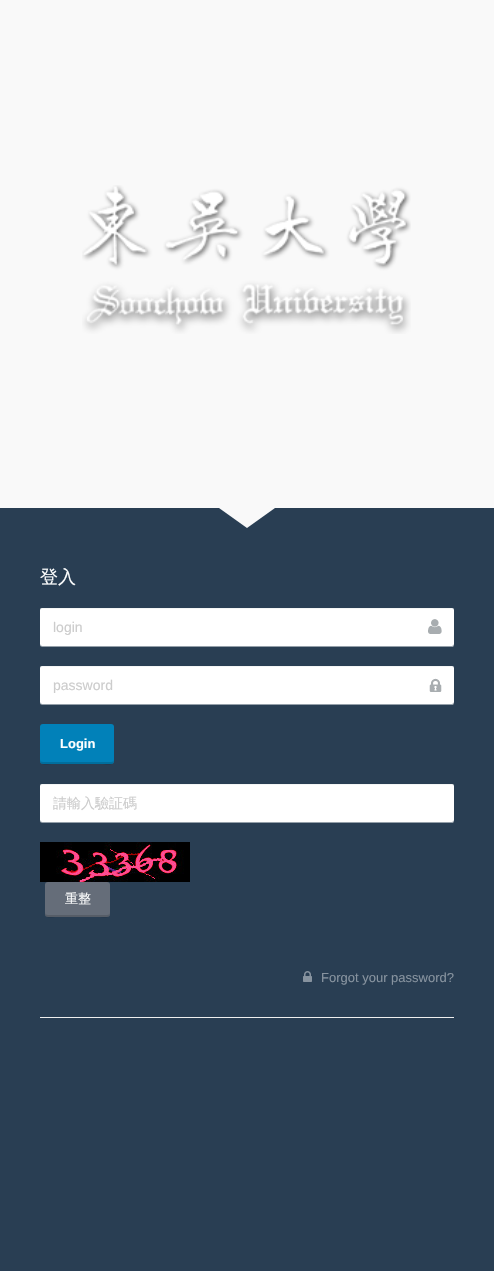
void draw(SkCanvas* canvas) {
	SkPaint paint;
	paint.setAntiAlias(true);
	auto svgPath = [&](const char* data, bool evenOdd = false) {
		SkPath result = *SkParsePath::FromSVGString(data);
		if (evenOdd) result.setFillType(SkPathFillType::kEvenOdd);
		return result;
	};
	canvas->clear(0xff293e53);
	paint.setColor(0xfff9f9f9);
	canvas->drawRect(SkRect::MakeXYWH(0, 0, 494, 508), paint);
	canvas->drawImageRect(SkImages::DeferredFromEncodedData(SkData::MakeFromFileName("img1.png")), SkRect::MakeXYWH(82, 185, 329, 149), SkSamplingOptions());
	canvas->drawPath(svgPath("M219 508H275L247 528Z"), paint);
	SkFont f1(fontMgr->matchFamilyStyle("WenQuanYi Zen Hei", SkFontStyle(500, SkFontStyle::kNormal_Width, SkFontStyle::kUpright_Slant)), 18);
	f1.setSubpixel(true);
	paint.setColor(0xfffeffff);
	canvas->drawString("登入", 40, 583, f1, paint);
	paint.setColor(0xff949fa9);
	canvas->drawPath(svgPath("M40 644V646L42 647H453C454 646 454 645 454 644C454 645 453 646 452 646H42C41 646 40 645 40 644Z"), paint);
	paint.setColor(0xffffffff);
	canvas->drawRoundRect(SkRect::MakeXYWH(40, 608, 414, 38), 2, 2, paint);
	canvas->drawImageRect(SkImages::DeferredFromEncodedData(SkData::MakeFromFileName("img2.png")), SkRect::MakeXYWH(428, 619, 14, 15), SkSamplingOptions());
	paint.setColor(0x40d1d6d9);
	canvas->drawPath(svgPath("M42 609H452C453 609 454 610 454 611C454 610 454 609 453 608H42L40 609V611C40 610 41 609 42 609Z"), paint);
	SkFont f2(fontMgr->matchFamilyStyle("Liberation Sans", SkFontStyle::Normal()), 14);
	f2.setSubpixel(true);
	paint.setColor(0xffcccccc);
	canvas->drawString("login", 53, 632, f2, paint);
	paint.setColor(0xff949fa9);
	canvas->drawPath(svgPath("M40 702V704L42 705H453C454 704 454 703 454 702C454 703 453 704 452 704H42C41 704 40 703 40 702Z"), paint);
	paint.setColor(0xffffffff);
	canvas->drawRoundRect(SkRect::MakeXYWH(40, 666, 414, 38), 2, 2, paint);
	canvas->drawImageRect(SkImages::DeferredFromEncodedData(SkData::MakeFromFileName("img3.png")), SkRect::MakeXYWH(429, 678, 13, 14), SkSamplingOptions());
	paint.setColor(0x40d1d6d9);
	canvas->drawPath(svgPath("M42 667H452C453 667 454 668 454 669C454 668 454 667 453 666H42L40 667V669C40 668 41 667 42 667Z"), paint);
	paint.setColor(0xffcccccc);
	canvas->drawString("password", 53, 690, f2, paint);
	paint.setColor(0xff0181b9);
	canvas->drawRoundRect(SkRect::MakeXYWH(40, 724, 74, 40), 3, 3, paint);
	paint.setColor(0x26000000);
	canvas->drawPath(svgPath("M40 759C40 767 47 764 54 764H100C107 764 114 767 114 759C114 761 113 762 111 762H43C41 762 40 761 40 759Z"), paint);
	SkFont f3(fontMgr->matchFamilyStyle("Liberation Sans", SkFontStyle::Bold()), 13);
	f3.setSubpixel(true);
	paint.setColor(0xfffeffff);
	canvas->drawString("Login", 60, 748, f3, paint);
	paint.setColor(0xff949fa9);
	canvas->drawPath(svgPath("M40 820V822L42 823H453C454 822 454 821 454 820C454 821 453 822 452 822H42C41 822 40 821 40 820Z"), paint);
	paint.setColor(0xffffffff);
	canvas->drawRoundRect(SkRect::MakeXYWH(40, 784, 414, 38), 2, 2, paint);
	paint.setColor(0x40d1d6d9);
	canvas->drawPath(svgPath("M42 785H452C453 785 454 786 454 787C454 786 454 785 453 784H42L40 785V787C40 786 41 785 42 785Z"), paint);
	SkFont f4(fontMgr->matchFamilyStyle("WenQuanYi Zen Hei", SkFontStyle(500, SkFontStyle::kNormal_Width, SkFontStyle::kUpright_Slant)), 14);
	f4.setSubpixel(true);
	paint.setColor(0xffcccccc);
	canvas->drawString("請輸入驗証碼", 53, 808, f4, paint);
	canvas->drawImageRect(SkImages::DeferredFromEncodedData(SkData::MakeFromFileName("img4.png")), SkRect::MakeXYWH(40, 842, 150, 40), SkSamplingOptions());
	paint.setColor(0xff656d79);
	canvas->drawRoundRect(SkRect::MakeXYWH(45, 882, 65, 35), 3, 3, paint);
	paint.setColor(0x26000000);
	canvas->drawPath(svgPath("M45 912C45 920 51 917 58 917H97C104 917 110 920 110 912C110 914 109 915 107 915H48C46 915 45 914 45 912Z"), paint);
	SkFont f5(fontMgr->matchFamilyStyle("WenQuanYi Zen Hei", SkFontStyle(500, SkFontStyle::kNormal_Width, SkFontStyle::kUpright_Slant)), 13);
	f5.setSubpixel(true);
	paint.setColor(0xfffeffff);
	canvas->drawString("重整", 65, 903, f5, paint);
	canvas->drawImageRect(SkImages::DeferredFromEncodedData(SkData::MakeFromFileName("img5.png")), SkRect::MakeXYWH(303, 971, 9, 11), SkSamplingOptions());
	SkFont f6(fontMgr->matchFamilyStyle("Liberation Sans", SkFontStyle::Normal()), 13);
	f6.setSubpixel(true);
	paint.setColor(0xff87939f);
	canvas->drawString("Forgot your password?", 321, 982, f6, paint);
	paint.setColor(0xffeeeeee);
	canvas->drawRect(SkRect::MakeXYWH(40, 1017, 414, 1), paint);
}
